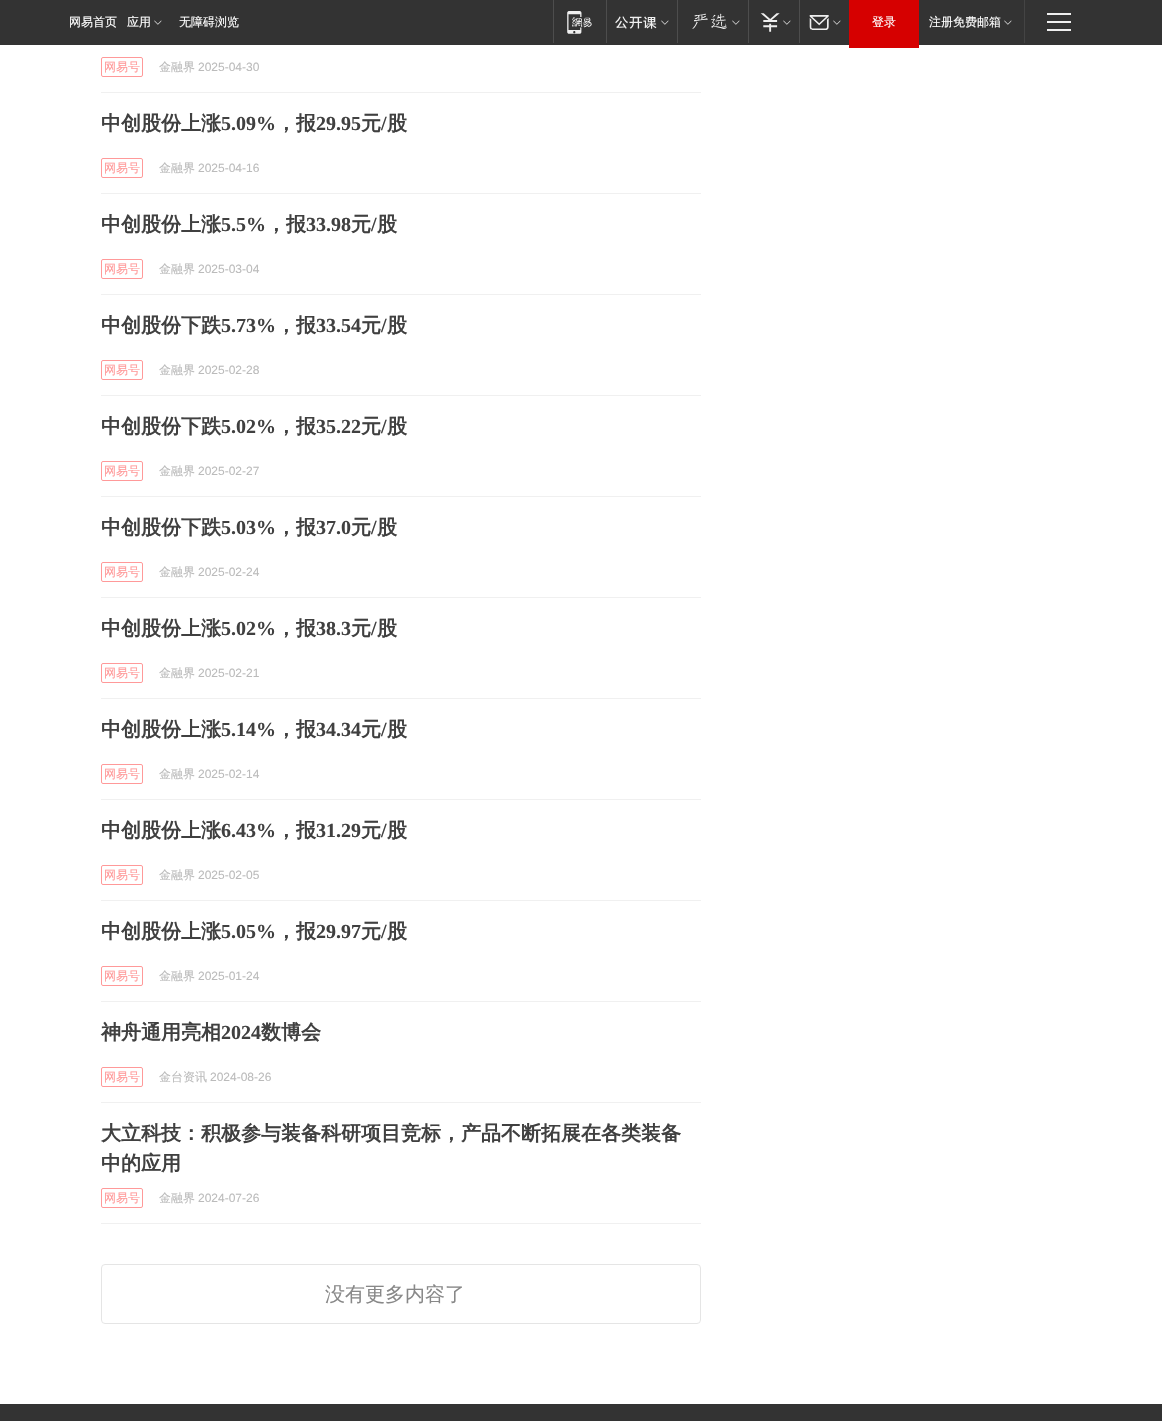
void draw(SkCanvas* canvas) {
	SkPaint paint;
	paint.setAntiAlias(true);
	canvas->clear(0xffffffff);
	paint.setColor(0xff333333);
	canvas->drawRect(SkRect::MakeXYWH(0, 0, 1162, 45), paint);
	SkFont f1(fontMgr->matchFamilyStyle("WenQuanYi Zen Hei", SkFontStyle(500, SkFontStyle::kNormal_Width, SkFontStyle::kUpright_Slant)), 12);
	f1.setSubpixel(true);
	paint.setColor(0xffffffff);
	canvas->drawString("网易首页", 69, 26, f1, paint);
	canvas->drawString("应用", 127, 26, f1, paint);
	canvas->drawImageRect(SkImages::DeferredFromEncodedData(SkData::MakeFromFileName("img1.png")), SkRect::MakeXYWH(154, 20, 8, 5), SkSamplingOptions());
	canvas->drawString("无障碍浏览", 179, 26, f1, paint);
	paint.setColor(0xff4d4d4d);
	canvas->drawRect(SkRect::MakeXYWH(553, 0, 1, 43), paint);
	canvas->drawImageRect(SkImages::DeferredFromEncodedData(SkData::MakeFromFileName("img2.png")), SkRect::MakeXYWH(567, 11, 25, 23), SkSamplingOptions());
	canvas->drawRect(SkRect::MakeXYWH(606, 0, 1, 43), paint);
	canvas->drawImageRect(SkImages::DeferredFromEncodedData(SkData::MakeFromFileName("img3.png")), SkRect::MakeXYWH(615, 16, 42, 13), SkSamplingOptions());
	canvas->drawImageRect(SkImages::DeferredFromEncodedData(SkData::MakeFromFileName("img1.png")), SkRect::MakeXYWH(661, 20, 8, 5), SkSamplingOptions());
	canvas->drawRect(SkRect::MakeXYWH(677, 0, 1, 43), paint);
	canvas->drawImageRect(SkImages::DeferredFromEncodedData(SkData::MakeFromFileName("img4.png")), SkRect::MakeXYWH(692, 13, 35, 16), SkSamplingOptions());
	canvas->drawImageRect(SkImages::DeferredFromEncodedData(SkData::MakeFromFileName("img1.png")), SkRect::MakeXYWH(732, 20, 8, 5), SkSamplingOptions());
	canvas->drawRect(SkRect::MakeXYWH(748, 0, 1, 43), paint);
	canvas->drawImageRect(SkImages::DeferredFromEncodedData(SkData::MakeFromFileName("img5.png")), SkRect::MakeXYWH(760, 13, 20, 19), SkSamplingOptions());
	canvas->drawImageRect(SkImages::DeferredFromEncodedData(SkData::MakeFromFileName("img1.png")), SkRect::MakeXYWH(783, 20, 8, 5), SkSamplingOptions());
	canvas->drawRect(SkRect::MakeXYWH(799, 0, 1, 43), paint);
	canvas->drawImageRect(SkImages::DeferredFromEncodedData(SkData::MakeFromFileName("img6.png")), SkRect::MakeXYWH(809, 15, 20, 15), SkSamplingOptions());
	canvas->drawImageRect(SkImages::DeferredFromEncodedData(SkData::MakeFromFileName("img1.png")), SkRect::MakeXYWH(833, 20, 8, 5), SkSamplingOptions());
	paint.setColor(0xffd60000);
	canvas->drawRect(SkRect::MakeXYWH(849, 0, 70, 48), paint);
	paint.setColor(0xffffffff);
	canvas->drawString("登录", 872, 26, f1, paint);
	canvas->drawString("注册免费邮箱", 929, 26, f1, paint);
	canvas->drawImageRect(SkImages::DeferredFromEncodedData(SkData::MakeFromFileName("img1.png")), SkRect::MakeXYWH(1004, 20, 8, 5), SkSamplingOptions());
	paint.setColor(0xff444444);
	canvas->drawRect(SkRect::MakeXYWH(1024, 0, 1, 43), paint);
	paint.setColor(0xffefefef);
	canvas->drawRect(SkRect::MakeXYWH(1047, 13, 24, 2), paint);
	canvas->drawRect(SkRect::MakeXYWH(1047, 21, 24, 2), paint);
	canvas->drawRect(SkRect::MakeXYWH(1047, 29, 24, 2), paint);
	paint.setColor(0xfff0f0f0);
	canvas->drawRect(SkRect::MakeXYWH(101, 92, 600, 1), paint);
	paint.setStroke(true);
	paint.setStrokeWidth(1);
	paint.setColor(0xffff9999);
	canvas->drawRoundRect(SkRect::MakeXYWH(101.5, 57.5, 41, 19), 1.5, 1.5, paint);
	paint.setStroke(false);
	canvas->drawString("网易号", 104, 71, f1, paint);
	paint.setColor(0xffbbbbbb);
	canvas->drawString("金融界", 159, 71, f1, paint);
	SkFont f2(fontMgr->matchFamilyStyle("Liberation Sans", SkFontStyle::Normal()), 12);
	f2.setSubpixel(true);
	canvas->drawString("2025-04-30", 198, 71, f2, paint);
	paint.setColor(0xfff0f0f0);
	canvas->drawRect(SkRect::MakeXYWH(101, 193, 600, 1), paint);
	SkFont f3(fontMgr->matchFamilyStyle("WenQuanYi Zen Hei", SkFontStyle::Bold()), 20);
	f3.setSubpixel(true);
	paint.setColor(0xff404040);
	canvas->drawString("中创股份上涨", 101, 130, f3, paint);
	SkFont f4(fontMgr->matchFamilyStyle("Liberation Serif", SkFontStyle::Bold()), 20);
	f4.setSubpixel(true);
	canvas->drawString("5.09%", 221, 130, f4, paint);
	canvas->drawString("，报", 276, 130, f3, paint);
	canvas->drawString("29.95", 316, 130, f4, paint);
	canvas->drawString("元", 361, 130, f3, paint);
	canvas->drawString("/", 381, 130, f4, paint);
	canvas->drawString("股", 387, 130, f3, paint);
	paint.setStroke(true);
	paint.setColor(0xffff9999);
	canvas->drawRoundRect(SkRect::MakeXYWH(101.5, 158.5, 41, 19), 1.5, 1.5, paint);
	paint.setStroke(false);
	canvas->drawString("网易号", 104, 172, f1, paint);
	paint.setColor(0xffbbbbbb);
	canvas->drawString("金融界", 159, 172, f1, paint);
	canvas->drawString("2025-04-16", 198, 172, f2, paint);
	paint.setColor(0xfff0f0f0);
	canvas->drawRect(SkRect::MakeXYWH(101, 294, 600, 1), paint);
	paint.setColor(0xff404040);
	canvas->drawString("中创股份上涨", 101, 231, f3, paint);
	canvas->drawString("5.5%", 221, 231, f4, paint);
	canvas->drawString("，报", 266, 231, f3, paint);
	canvas->drawString("33.98", 306, 231, f4, paint);
	canvas->drawString("元", 351, 231, f3, paint);
	canvas->drawString("/", 371, 231, f4, paint);
	canvas->drawString("股", 377, 231, f3, paint);
	paint.setStroke(true);
	paint.setColor(0xffff9999);
	canvas->drawRoundRect(SkRect::MakeXYWH(101.5, 259.5, 41, 19), 1.5, 1.5, paint);
	paint.setStroke(false);
	canvas->drawString("网易号", 104, 273, f1, paint);
	paint.setColor(0xffbbbbbb);
	canvas->drawString("金融界", 159, 273, f1, paint);
	canvas->drawString("2025-03-04", 198, 273, f2, paint);
	paint.setColor(0xfff0f0f0);
	canvas->drawRect(SkRect::MakeXYWH(101, 395, 600, 1), paint);
	paint.setColor(0xff404040);
	canvas->drawString("中创股份下跌", 101, 332, f3, paint);
	canvas->drawString("5.73%", 221, 332, f4, paint);
	canvas->drawString("，报", 276, 332, f3, paint);
	canvas->drawString("33.54", 316, 332, f4, paint);
	canvas->drawString("元", 361, 332, f3, paint);
	canvas->drawString("/", 381, 332, f4, paint);
	canvas->drawString("股", 387, 332, f3, paint);
	paint.setStroke(true);
	paint.setColor(0xffff9999);
	canvas->drawRoundRect(SkRect::MakeXYWH(101.5, 360.5, 41, 19), 1.5, 1.5, paint);
	paint.setStroke(false);
	canvas->drawString("网易号", 104, 374, f1, paint);
	paint.setColor(0xffbbbbbb);
	canvas->drawString("金融界", 159, 374, f1, paint);
	canvas->drawString("2025-02-28", 198, 374, f2, paint);
	paint.setColor(0xfff0f0f0);
	canvas->drawRect(SkRect::MakeXYWH(101, 496, 600, 1), paint);
	paint.setColor(0xff404040);
	canvas->drawString("中创股份下跌", 101, 433, f3, paint);
	canvas->drawString("5.02%", 221, 433, f4, paint);
	canvas->drawString("，报", 276, 433, f3, paint);
	canvas->drawString("35.22", 316, 433, f4, paint);
	canvas->drawString("元", 361, 433, f3, paint);
	canvas->drawString("/", 381, 433, f4, paint);
	canvas->drawString("股", 387, 433, f3, paint);
	paint.setStroke(true);
	paint.setColor(0xffff9999);
	canvas->drawRoundRect(SkRect::MakeXYWH(101.5, 461.5, 41, 19), 1.5, 1.5, paint);
	paint.setStroke(false);
	canvas->drawString("网易号", 104, 475, f1, paint);
	paint.setColor(0xffbbbbbb);
	canvas->drawString("金融界", 159, 475, f1, paint);
	canvas->drawString("2025-02-27", 198, 475, f2, paint);
	paint.setColor(0xfff0f0f0);
	canvas->drawRect(SkRect::MakeXYWH(101, 597, 600, 1), paint);
	paint.setColor(0xff404040);
	canvas->drawString("中创股份下跌", 101, 534, f3, paint);
	canvas->drawString("5.03%", 221, 534, f4, paint);
	canvas->drawString("，报", 276, 534, f3, paint);
	canvas->drawString("37.0", 316, 534, f4, paint);
	canvas->drawString("元", 351, 534, f3, paint);
	canvas->drawString("/", 371, 534, f4, paint);
	canvas->drawString("股", 377, 534, f3, paint);
	paint.setStroke(true);
	paint.setColor(0xffff9999);
	canvas->drawRoundRect(SkRect::MakeXYWH(101.5, 562.5, 41, 19), 1.5, 1.5, paint);
	paint.setStroke(false);
	canvas->drawString("网易号", 104, 576, f1, paint);
	paint.setColor(0xffbbbbbb);
	canvas->drawString("金融界", 159, 576, f1, paint);
	canvas->drawString("2025-02-24", 198, 576, f2, paint);
	paint.setColor(0xfff0f0f0);
	canvas->drawRect(SkRect::MakeXYWH(101, 698, 600, 1), paint);
	paint.setColor(0xff404040);
	canvas->drawString("中创股份上涨", 101, 635, f3, paint);
	canvas->drawString("5.02%", 221, 635, f4, paint);
	canvas->drawString("，报", 276, 635, f3, paint);
	canvas->drawString("38.3", 316, 635, f4, paint);
	canvas->drawString("元", 351, 635, f3, paint);
	canvas->drawString("/", 371, 635, f4, paint);
	canvas->drawString("股", 377, 635, f3, paint);
	paint.setStroke(true);
	paint.setColor(0xffff9999);
	canvas->drawRoundRect(SkRect::MakeXYWH(101.5, 663.5, 41, 19), 1.5, 1.5, paint);
	paint.setStroke(false);
	canvas->drawString("网易号", 104, 677, f1, paint);
	paint.setColor(0xffbbbbbb);
	canvas->drawString("金融界", 159, 677, f1, paint);
	canvas->drawString("2025-02-21", 198, 677, f2, paint);
	paint.setColor(0xfff0f0f0);
	canvas->drawRect(SkRect::MakeXYWH(101, 799, 600, 1), paint);
	paint.setColor(0xff404040);
	canvas->drawString("中创股份上涨", 101, 736, f3, paint);
	canvas->drawString("5.14%", 221, 736, f4, paint);
	canvas->drawString("，报", 276, 736, f3, paint);
	canvas->drawString("34.34", 316, 736, f4, paint);
	canvas->drawString("元", 361, 736, f3, paint);
	canvas->drawString("/", 381, 736, f4, paint);
	canvas->drawString("股", 387, 736, f3, paint);
	paint.setStroke(true);
	paint.setColor(0xffff9999);
	canvas->drawRoundRect(SkRect::MakeXYWH(101.5, 764.5, 41, 19), 1.5, 1.5, paint);
	paint.setStroke(false);
	canvas->drawString("网易号", 104, 778, f1, paint);
	paint.setColor(0xffbbbbbb);
	canvas->drawString("金融界", 159, 778, f1, paint);
	canvas->drawString("2025-02-14", 198, 778, f2, paint);
	paint.setColor(0xfff0f0f0);
	canvas->drawRect(SkRect::MakeXYWH(101, 900, 600, 1), paint);
	paint.setColor(0xff404040);
	canvas->drawString("中创股份上涨", 101, 837, f3, paint);
	canvas->drawString("6.43%", 221, 837, f4, paint);
	canvas->drawString("，报", 276, 837, f3, paint);
	canvas->drawString("31.29", 316, 837, f4, paint);
	canvas->drawString("元", 361, 837, f3, paint);
	canvas->drawString("/", 381, 837, f4, paint);
	canvas->drawString("股", 387, 837, f3, paint);
	paint.setStroke(true);
	paint.setColor(0xffff9999);
	canvas->drawRoundRect(SkRect::MakeXYWH(101.5, 865.5, 41, 19), 1.5, 1.5, paint);
	paint.setStroke(false);
	canvas->drawString("网易号", 104, 879, f1, paint);
	paint.setColor(0xffbbbbbb);
	canvas->drawString("金融界", 159, 879, f1, paint);
	canvas->drawString("2025-02-05", 198, 879, f2, paint);
	paint.setColor(0xfff0f0f0);
	canvas->drawRect(SkRect::MakeXYWH(101, 1001, 600, 1), paint);
	paint.setColor(0xff404040);
	canvas->drawString("中创股份上涨", 101, 938, f3, paint);
	canvas->drawString("5.05%", 221, 938, f4, paint);
	canvas->drawString("，报", 276, 938, f3, paint);
	canvas->drawString("29.97", 316, 938, f4, paint);
	canvas->drawString("元", 361, 938, f3, paint);
	canvas->drawString("/", 381, 938, f4, paint);
	canvas->drawString("股", 387, 938, f3, paint);
	paint.setStroke(true);
	paint.setColor(0xffff9999);
	canvas->drawRoundRect(SkRect::MakeXYWH(101.5, 966.5, 41, 19), 1.5, 1.5, paint);
	paint.setStroke(false);
	canvas->drawString("网易号", 104, 980, f1, paint);
	paint.setColor(0xffbbbbbb);
	canvas->drawString("金融界", 159, 980, f1, paint);
	canvas->drawString("2025-01-24", 198, 980, f2, paint);
	paint.setColor(0xfff0f0f0);
	canvas->drawRect(SkRect::MakeXYWH(101, 1102, 600, 1), paint);
	paint.setColor(0xff404040);
	canvas->drawString("神舟通用亮相", 101, 1039, f3, paint);
	canvas->drawString("2024", 221, 1039, f4, paint);
	canvas->drawString("数博会", 261, 1039, f3, paint);
	paint.setStroke(true);
	paint.setColor(0xffff9999);
	canvas->drawRoundRect(SkRect::MakeXYWH(101.5, 1067.5, 41, 19), 1.5, 1.5, paint);
	paint.setStroke(false);
	canvas->drawString("网易号", 104, 1081, f1, paint);
	paint.setColor(0xffbbbbbb);
	canvas->drawString("金台资讯", 159, 1081, f1, paint);
	canvas->drawString("2024-08-26", 210, 1081, f2, paint);
	paint.setColor(0xfff0f0f0);
	canvas->drawRect(SkRect::MakeXYWH(101, 1223, 600, 1), paint);
	paint.setColor(0xff404040);
	canvas->drawString("大立科技：积极参与装备科研项目竞标，产品不断拓展在各类装备", 101, 1140, f3, paint);
	canvas->drawString("中的应用", 101, 1170, f3, paint);
	paint.setStroke(true);
	paint.setColor(0xffff9999);
	canvas->drawRoundRect(SkRect::MakeXYWH(101.5, 1188.5, 41, 19), 1.5, 1.5, paint);
	paint.setStroke(false);
	canvas->drawString("网易号", 104, 1202, f1, paint);
	paint.setColor(0xffbbbbbb);
	canvas->drawString("金融界", 159, 1202, f1, paint);
	canvas->drawString("2024-07-26", 198, 1202, f2, paint);
	paint.setStroke(true);
	paint.setColor(0xffe5e5e5);
	canvas->drawRoundRect(SkRect::MakeXYWH(101.5, 1264.5, 599, 59), 3.5, 3.5, paint);
	SkFont f5(fontMgr->matchFamilyStyle("WenQuanYi Zen Hei", SkFontStyle(500, SkFontStyle::kNormal_Width, SkFontStyle::kUpright_Slant)), 20);
	f5.setSubpixel(true);
	paint.setStroke(false);
	paint.setColor(0xff888888);
	canvas->drawString("没有更多内容了", 325, 1301, f5, paint);
	paint.setColor(0xff333333);
	canvas->drawRect(SkRect::MakeXYWH(0, 1404, 1162, 17), paint);
}
